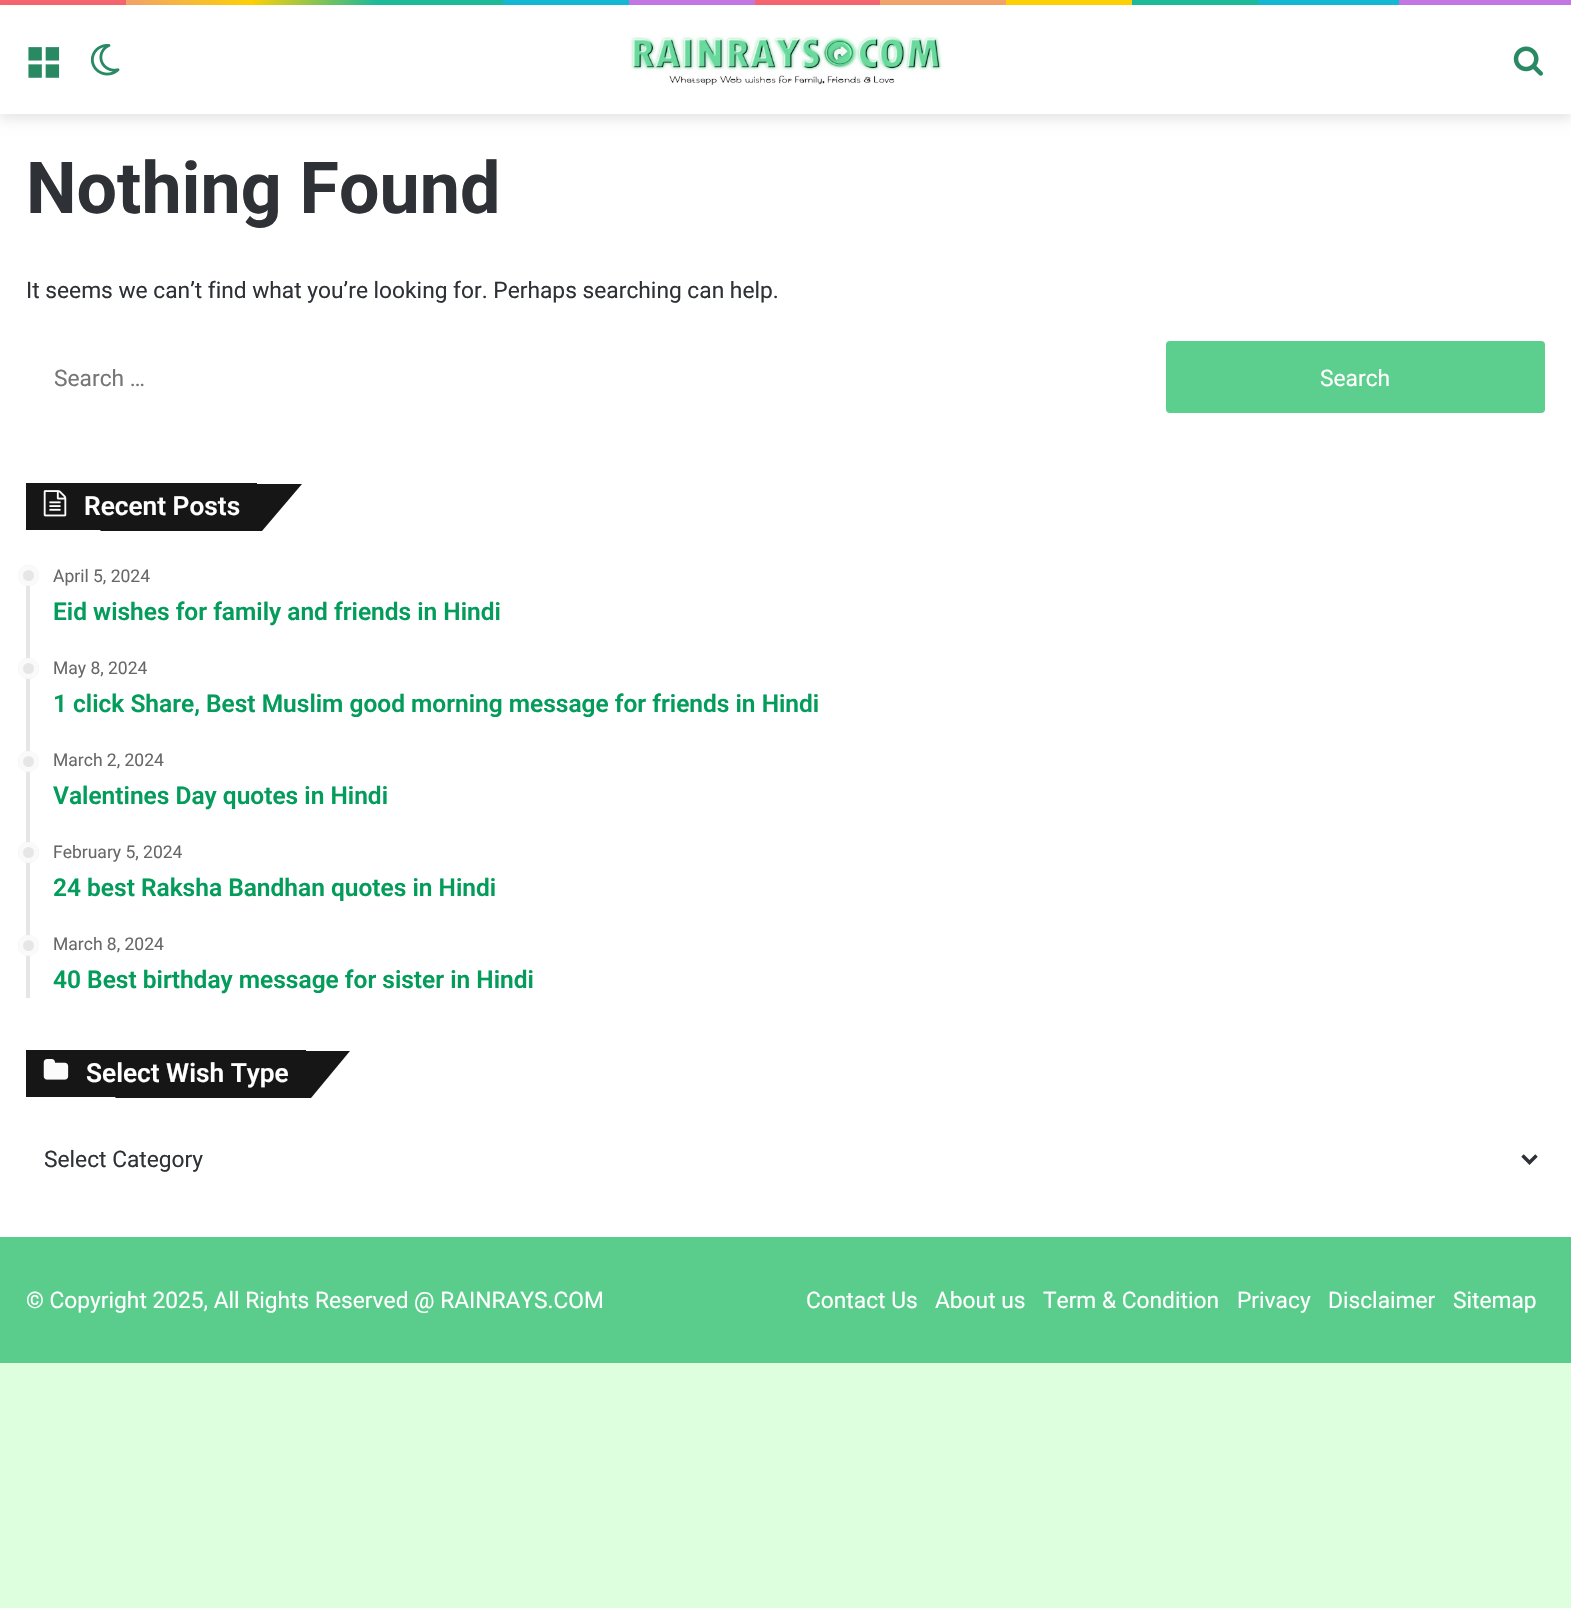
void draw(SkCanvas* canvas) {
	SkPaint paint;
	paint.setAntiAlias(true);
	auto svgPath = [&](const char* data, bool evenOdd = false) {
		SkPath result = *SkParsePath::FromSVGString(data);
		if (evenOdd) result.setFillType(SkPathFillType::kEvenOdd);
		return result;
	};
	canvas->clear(0xffddffdd);
	paint.setColor(0xffffffff);
	canvas->drawRect(SkRect::MakeXYWH(0, 114, 1571, 1123), paint);
	{
		const SkColor colors[] = {0xfff76570, 0xfff76570, 0xfff3a46b, 0xffffd205, 0xff1bbc9b, 0xff1bbc9b, 0xff14b9d5, 0xff14b9d5, 0xffc377e4, 0xffc377e4, 0xfff76570, 0xfff76570, 0xfff3a46b, 0xfff3a46b, 0xffffd205, 0xffffd205, 0xff1bbc9b, 0xff1bbc9b, 0xff14b9d5, 0xff14b9d5, 0xffc377e4, 0xffc377e4};
		const float stops[] = {0, 0.08, 0.08, 0.16, 0.24, 0.32, 0.32, 0.4, 0.4, 0.48, 0.48, 0.56, 0.56, 0.64, 0.64, 0.72, 0.72, 0.8, 0.8, 0.89, 0.89, 1};
		const SkPoint ends[] = {{0, 2.6}, {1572, 2.6}};
		paint.setShader(SkGradientShader::MakeLinear(ends, colors, stops, 22, SkTileMode::kClamp));
		paint.setAlpha(255);
	}
	canvas->drawRect(SkRect::MakeXYWH(0, 0, 1571, 5), paint);
	paint.setShader(nullptr);
	paint.setColor(0x1a000000);
	paint.setMaskFilter(SkMaskFilter::MakeBlur(kNormal_SkBlurStyle, 6));
	canvas->drawRect(SkRect::MakeXYWH(0, 11, 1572, 108), paint);
	paint.setMaskFilter(nullptr);
	paint.setColor(0xffffffff);
	canvas->drawRect(SkRect::MakeXYWH(0, 5, 1571, 109), paint);
	canvas->drawImageRect(SkImages::DeferredFromEncodedData(SkData::MakeFromFileName("img1.png")), SkRect::MakeXYWH(28, 47, 32, 31), SkSamplingOptions());
	canvas->drawImageRect(SkImages::DeferredFromEncodedData(SkData::MakeFromFileName("img2.png")), SkRect::MakeXYWH(90, 44, 30, 32), SkSamplingOptions());
	canvas->drawImageRect(SkImages::DeferredFromEncodedData(SkData::MakeFromFileName("img3.png")), SkRect::MakeXYWH(630, 35, 312, 51), SkSamplingOptions());
	canvas->drawImageRect(SkImages::DeferredFromEncodedData(SkData::MakeFromFileName("img4.png")), SkRect::MakeXYWH(1513, 46, 30, 30), SkSamplingOptions());
	SkFont f1(fontMgr->matchFamilyStyle("Roboto", SkFontStyle::Bold()), 71.75);
	f1.setSubpixel(true);
	paint.setColor(0xff2e3136);
	canvas->drawString("Nothing Found", 26, 213, f1, paint);
	SkFont f2(fontMgr->matchFamilyStyle("Roboto", SkFontStyle::Normal()), 22.75);
	f2.setSubpixel(true);
	canvas->drawString("It seems we can’t find what you’re looking for. Perhaps searching can help.", 26, 298, f2, paint);
	paint.setColor(0xff767676);
	canvas->drawString("Search …", 54, 386, f2, paint);
	paint.setColor(0xff5cce8d);
	canvas->drawRoundRect(SkRect::MakeXYWH(1166, 341, 379, 72), 4, 4, paint);
	paint.setColor(0xffffffff);
	canvas->drawString("Search", 1320, 386, f2, paint);
	paint.setColor(0xff161616);
	canvas->drawRect(SkRect::MakeXYWH(26, 483, 231, 47), paint);
	canvas->drawPath(svgPath("M140 484H302L262 531H100Z"), paint);
	canvas->drawImageRect(SkImages::DeferredFromEncodedData(SkData::MakeFromFileName("img5.png")), SkRect::MakeXYWH(43, 490, 24, 27), SkSamplingOptions());
	SkFont f3(fontMgr->matchFamilyStyle("Roboto", SkFontStyle(600, SkFontStyle::kNormal_Width, SkFontStyle::kUpright_Slant)), 26.25);
	f3.setSubpixel(true);
	paint.setColor(0xffffffff);
	canvas->drawString("Recent Posts", 84, 515, f3, paint);
	paint.setColor(0xffe6e6e6);
	canvas->drawRect(SkRect::MakeXYWH(26, 565, 4, 433), paint);
	canvas->drawCircle(28.5, 575.5, 10.5, paint);
	paint.setStroke(true);
	paint.setStrokeWidth(5);
	paint.setColor(0xccffffff);
	canvas->drawCircle(28.5, 575.5, 8, paint);
	SkFont f4(fontMgr->matchFamilyStyle("Roboto", SkFontStyle::Normal()), 17.5);
	f4.setSubpixel(true);
	paint.setStroke(false);
	paint.setColor(0xff686868);
	canvas->drawString("April 5, 2024", 53, 582, f4, paint);
	SkFont f5(fontMgr->matchFamilyStyle("Roboto", SkFontStyle(600, SkFontStyle::kNormal_Width, SkFontStyle::kUpright_Slant)), 24.5);
	f5.setSubpixel(true);
	paint.setColor(0xff039c5a);
	canvas->drawString("Eid wishes for family and friends in Hindi", 53, 620, f5, paint);
	paint.setColor(0xffe6e6e6);
	canvas->drawCircle(28.5, 668.5, 10.5, paint);
	paint.setStroke(true);
	paint.setColor(0xccffffff);
	canvas->drawCircle(28.5, 668.5, 8, paint);
	paint.setStroke(false);
	paint.setColor(0xff686868);
	canvas->drawString("May 8, 2024", 53, 674, f4, paint);
	paint.setColor(0xff039c5a);
	canvas->drawString("1 click Share, Best Muslim good morning message for friends in Hindi", 53, 712, f5, paint);
	paint.setColor(0xffe6e6e6);
	canvas->drawCircle(28.5, 761.5, 10.5, paint);
	paint.setStroke(true);
	paint.setColor(0xccffffff);
	canvas->drawCircle(28.5, 761.5, 8, paint);
	paint.setStroke(false);
	paint.setColor(0xff686868);
	canvas->drawString("March 2, 2024", 53, 766, f4, paint);
	paint.setColor(0xff039c5a);
	canvas->drawString("Valentines Day quotes in Hindi", 53, 804, f5, paint);
	paint.setColor(0xffe6e6e6);
	canvas->drawCircle(28.5, 852.5, 10.5, paint);
	paint.setStroke(true);
	paint.setColor(0xccffffff);
	canvas->drawCircle(28.5, 852.5, 8, paint);
	paint.setStroke(false);
	paint.setColor(0xff686868);
	canvas->drawString("February 5, 2024", 53, 858, f4, paint);
	paint.setColor(0xff039c5a);
	canvas->drawString("24 best Raksha Bandhan quotes in Hindi", 53, 896, f5, paint);
	paint.setColor(0xffe6e6e6);
	canvas->drawCircle(28.5, 945.5, 10.5, paint);
	paint.setStroke(true);
	paint.setColor(0xccffffff);
	canvas->drawCircle(28.5, 945.5, 8, paint);
	paint.setStroke(false);
	paint.setColor(0xff686868);
	canvas->drawString("March 8, 2024", 53, 950, f4, paint);
	paint.setColor(0xff039c5a);
	canvas->drawString("40 Best birthday message for sister in Hindi", 53, 988, f5, paint);
	paint.setColor(0xff161616);
	canvas->drawRect(SkRect::MakeXYWH(26, 1050, 280, 47), paint);
	canvas->drawPath(svgPath("M154 1051H350L311 1098H115Z"), paint);
	canvas->drawImageRect(SkImages::DeferredFromEncodedData(SkData::MakeFromFileName("img6.png")), SkRect::MakeXYWH(43, 1059, 26, 21), SkSamplingOptions());
	paint.setColor(0xffffffff);
	canvas->drawString("Select Wish Type", 86, 1082, f3, paint);
	paint.setStroke(true);
	paint.setStrokeWidth(3.5);
	paint.setColor(0xff2e3136);
	canvas->drawPath(svgPath("M1522.5 1155.5L1529.5 1162.5L1536.5 1155.5"), paint);
	paint.setStroke(false);
	canvas->drawString("Select Category", 44, 1167, f2, paint);
	paint.setColor(0xff5acd8c);
	canvas->drawRect(SkRect::MakeXYWH(0, 1237, 1571, 126), paint);
	paint.setColor(0xffffffff);
	canvas->drawString("© Copyright 2025, All Rights Reserved @ RAINRAYS.COM", 26, 1308, f2, paint);
	canvas->drawString("Contact Us", 806, 1308, f2, paint);
	canvas->drawString("About us", 935, 1308, f2, paint);
	canvas->drawString("Term & Condition", 1043, 1308, f2, paint);
	canvas->drawString("Privacy", 1237, 1308, f2, paint);
	canvas->drawString("Disclaimer", 1328, 1308, f2, paint);
	canvas->drawString("Sitemap", 1453, 1308, f2, paint);
}
